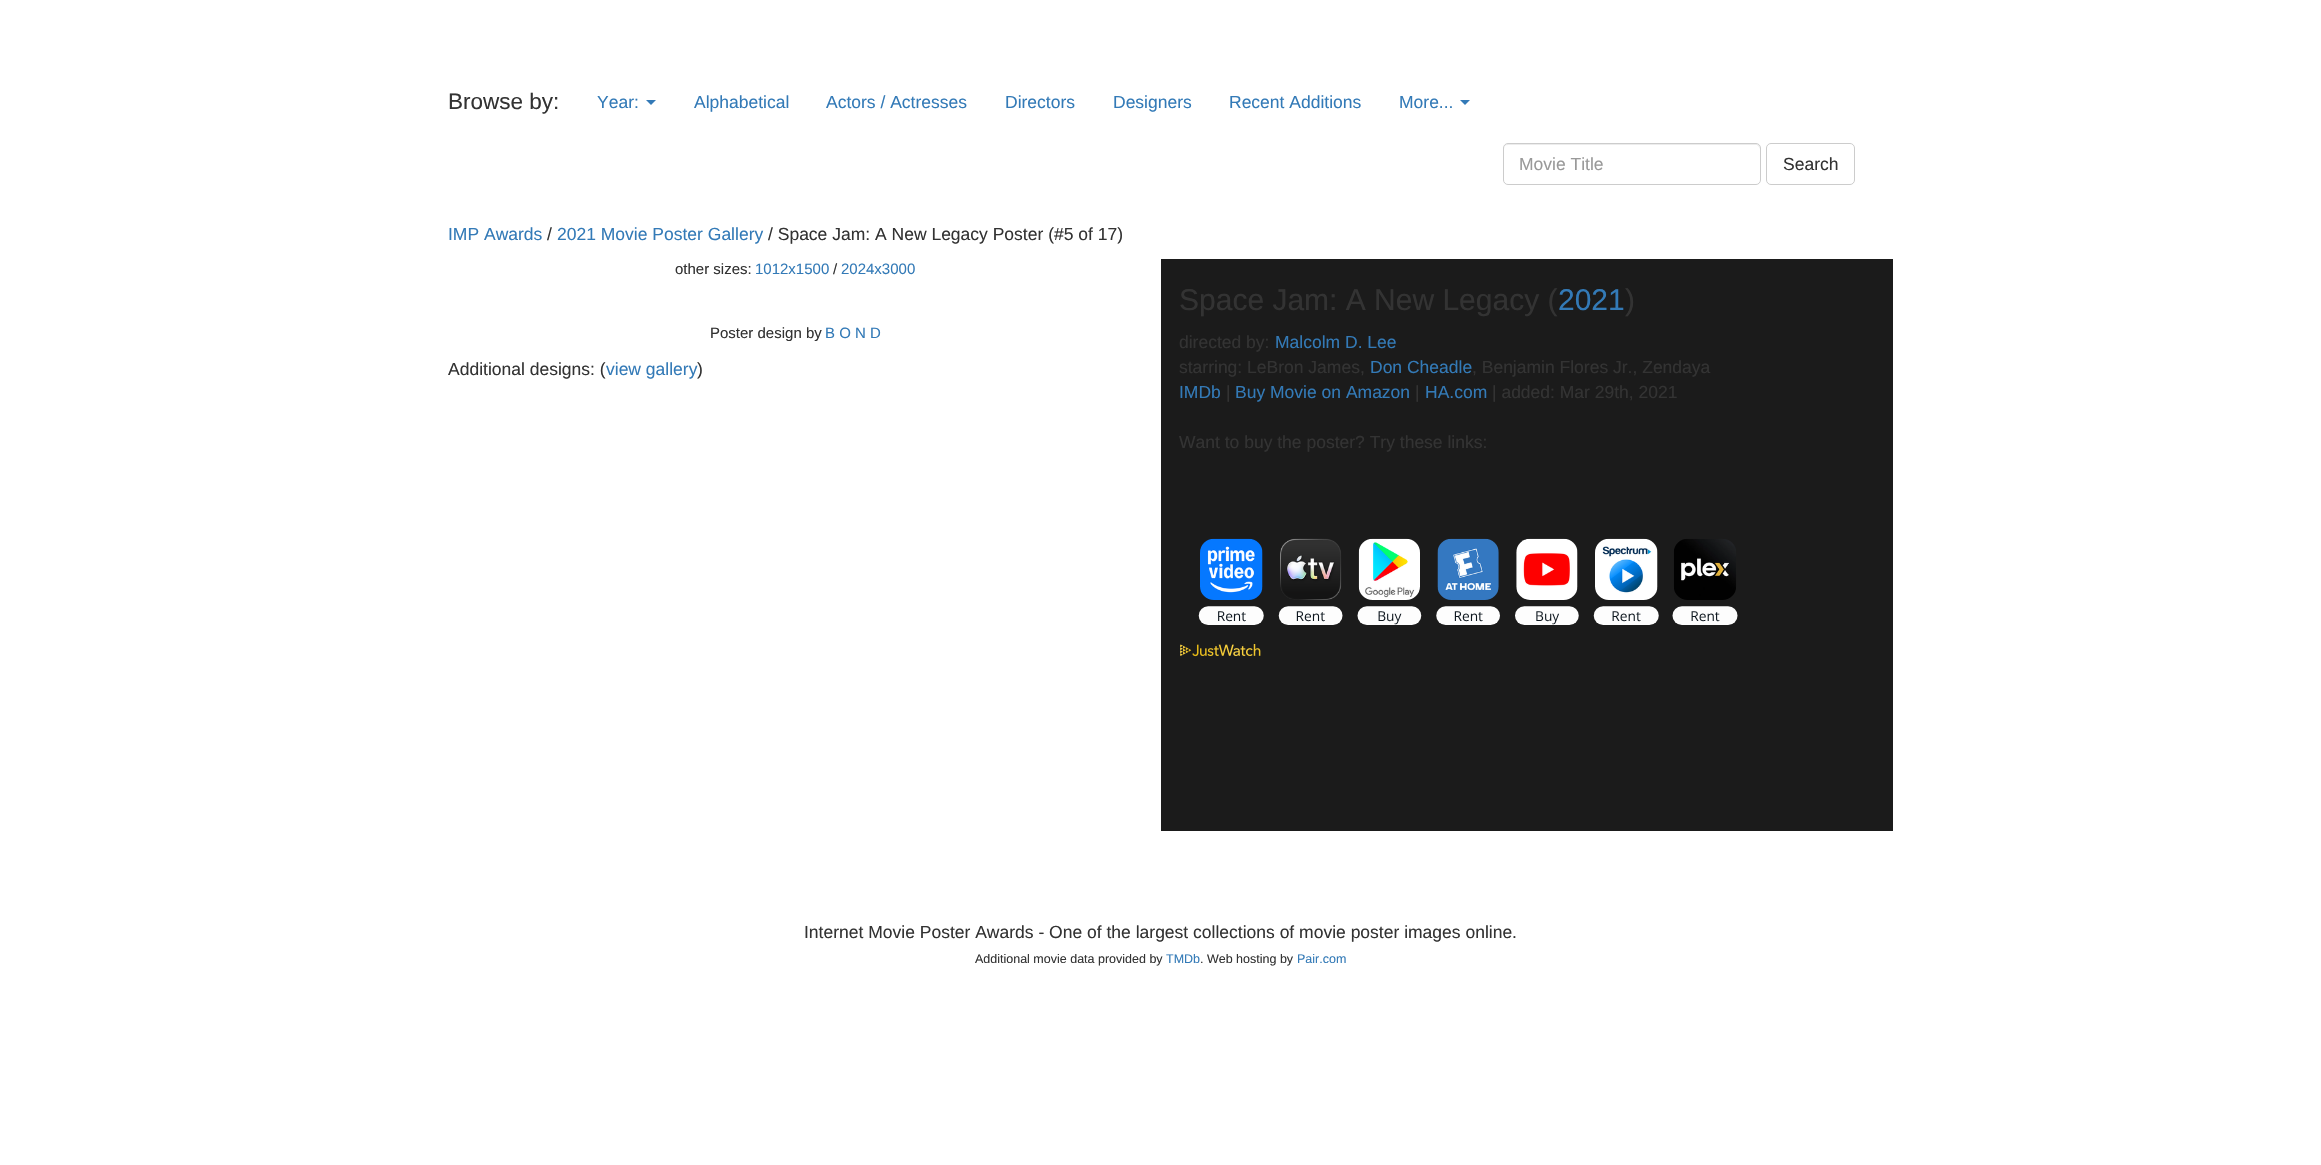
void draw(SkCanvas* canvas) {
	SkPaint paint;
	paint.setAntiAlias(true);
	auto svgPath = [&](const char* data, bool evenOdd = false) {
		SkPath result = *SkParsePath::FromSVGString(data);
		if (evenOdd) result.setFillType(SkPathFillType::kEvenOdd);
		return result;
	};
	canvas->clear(0xffffffff);
	SkFont f1(fontMgr->matchFamilyStyle("Liberation Sans", SkFontStyle::Normal()), 22.5);
	f1.setSubpixel(true);
	paint.setColor(0xff333333);
	canvas->drawString("Browse by:", 448, 109, f1, paint);
	SkFont f2(fontMgr->matchFamilyStyle("Liberation Sans", SkFontStyle::Normal()), 17.5);
	f2.setSubpixel(true);
	paint.setColor(0xff337ab7);
	canvas->drawString("Year:", 597, 108, f2, paint);
	canvas->drawPath(svgPath("M646 100H656L651 105Z"), paint);
	canvas->drawString("Alphabetical", 694, 108, f2, paint);
	canvas->drawString("Actors / Actresses", 826, 108, f2, paint);
	canvas->drawString("Directors", 1005, 108, f2, paint);
	canvas->drawString("Designers", 1113, 108, f2, paint);
	canvas->drawString("Recent Additions", 1229, 108, f2, paint);
	canvas->drawString("More...", 1399, 108, f2, paint);
	canvas->drawPath(svgPath("M1460 100H1470L1465 105Z"), paint);
	paint.setColor(0xffececec);
	canvas->drawPath(svgPath("M1508 145H1757L1759 147L1760 149V148C1760 146 1758 144 1756 144H1508C1506 144 1504 146 1504 148V149C1504 147 1505 145 1508 145Z"), paint);
	paint.setStroke(true);
	paint.setStrokeWidth(1);
	paint.setColor(0xffcccccc);
	canvas->drawRoundRect(SkRect::MakeXYWH(1503.5, 143.5, 257, 41), 4.5, 4.5, paint);
	paint.setStroke(false);
	paint.setColor(0xff999999);
	canvas->drawString("Movie Title", 1519, 170, f2, paint);
	paint.setStroke(true);
	paint.setColor(0xffcccccc);
	canvas->drawRoundRect(SkRect::MakeXYWH(1766.5, 143.5, 88, 41), 4.5, 4.5, paint);
	paint.setStroke(false);
	paint.setColor(0xff333333);
	canvas->drawString("Search", 1783, 170, f2, paint);
	paint.setColor(0xff337ab7);
	canvas->drawString("IMP Awards", 448, 240, f2, paint);
	paint.setColor(0xff333333);
	canvas->drawString("/", 547, 240, f2, paint);
	paint.setColor(0xff337ab7);
	canvas->drawString("2021 Movie Poster Gallery", 557, 240, f2, paint);
	paint.setColor(0xff333333);
	canvas->drawString("/ Space Jam: A New Legacy Poster (#5 of 17)", 768, 240, f2, paint);
	SkFont f3(fontMgr->matchFamilyStyle("Liberation Sans", SkFontStyle::Normal()), 15);
	f3.setSubpixel(true);
	canvas->drawString("other sizes:", 675, 274, f3, paint);
	paint.setColor(0xff337ab7);
	canvas->drawString("1012x1500", 755, 274, f3, paint);
	paint.setColor(0xff333333);
	canvas->drawString("/", 833, 274, f3, paint);
	paint.setColor(0xff337ab7);
	canvas->drawString("2024x3000", 841, 274, f3, paint);
	paint.setColor(0xff333333);
	canvas->drawString("Poster design by", 710, 338, f3, paint);
	paint.setColor(0xff337ab7);
	canvas->drawString("B O N D", 825, 338, f3, paint);
	paint.setColor(0xff333333);
	canvas->drawString("Additional designs: (", 448, 375, f2, paint);
	paint.setColor(0xff337ab7);
	canvas->drawString("view gallery", 606, 375, f2, paint);
	paint.setColor(0xff333333);
	canvas->drawString(")", 697, 375, f2, paint);
	paint.setColor(0xff1b1b1b);
	canvas->drawRect(SkRect::MakeXYWH(1161, 259, 732, 572), paint);
	SkFont f4(fontMgr->matchFamilyStyle("Liberation Sans", SkFontStyle::Normal()), 30);
	f4.setSubpixel(true);
	paint.setColor(0xff333333);
	canvas->drawString("Space Jam: A New Legacy (", 1179, 310, f4, paint);
	paint.setColor(0xff337ab7);
	canvas->drawString("2021", 1558, 310, f4, paint);
	paint.setColor(0xff333333);
	canvas->drawString(")", 1625, 310, f4, paint);
	canvas->drawString("directed by:", 1179, 348, f2, paint);
	paint.setColor(0xff337ab7);
	canvas->drawString("Malcolm D. Lee", 1275, 348, f2, paint);
	paint.setColor(0xff333333);
	canvas->drawString("starring: LeBron James,", 1179, 373, f2, paint);
	paint.setColor(0xff337ab7);
	canvas->drawString("Don Cheadle", 1370, 373, f2, paint);
	paint.setColor(0xff333333);
	canvas->drawString(", Benjamin Flores Jr., Zendaya", 1472, 373, f2, paint);
	paint.setColor(0xff337ab7);
	canvas->drawString("IMDb", 1179, 398, f2, paint);
	paint.setColor(0xff333333);
	canvas->drawString("|", 1226, 398, f2, paint);
	paint.setColor(0xff337ab7);
	canvas->drawString("Buy Movie on Amazon", 1235, 398, f2, paint);
	paint.setColor(0xff333333);
	canvas->drawString("|", 1415, 398, f2, paint);
	paint.setColor(0xff337ab7);
	canvas->drawString("HA.com", 1425, 398, f2, paint);
	paint.setColor(0xff333333);
	canvas->drawString("| added: Mar 29th, 2021", 1492, 398, f2, paint);
	canvas->drawString("Want to buy the poster? Try these links:", 1179, 448, f2, paint);
	canvas->drawImageRect(SkImages::DeferredFromEncodedData(SkData::MakeFromFileName("img1.png")), SkRect::MakeXYWH(1198, 538, 540, 87), SkSamplingOptions());
	canvas->drawImageRect(SkImages::DeferredFromEncodedData(SkData::MakeFromFileName("img2.png")), SkRect::MakeXYWH(1180, 644, 81, 13), SkSamplingOptions());
	canvas->drawString("Internet Movie Poster Awards - One of the largest collections of movie poster images online.", 804, 938, f2, paint);
	SkFont f5(fontMgr->matchFamilyStyle("Liberation Sans", SkFontStyle::Normal()), 12.5);
	f5.setSubpixel(true);
	canvas->drawString("Additional movie data provided by", 975, 963, f5, paint);
	paint.setColor(0xff337ab7);
	canvas->drawString("TMDb", 1166, 963, f5, paint);
	paint.setColor(0xff333333);
	canvas->drawString(". Web hosting by", 1200, 963, f5, paint);
	paint.setColor(0xff337ab7);
	canvas->drawString("Pair.com", 1297, 963, f5, paint);
}
